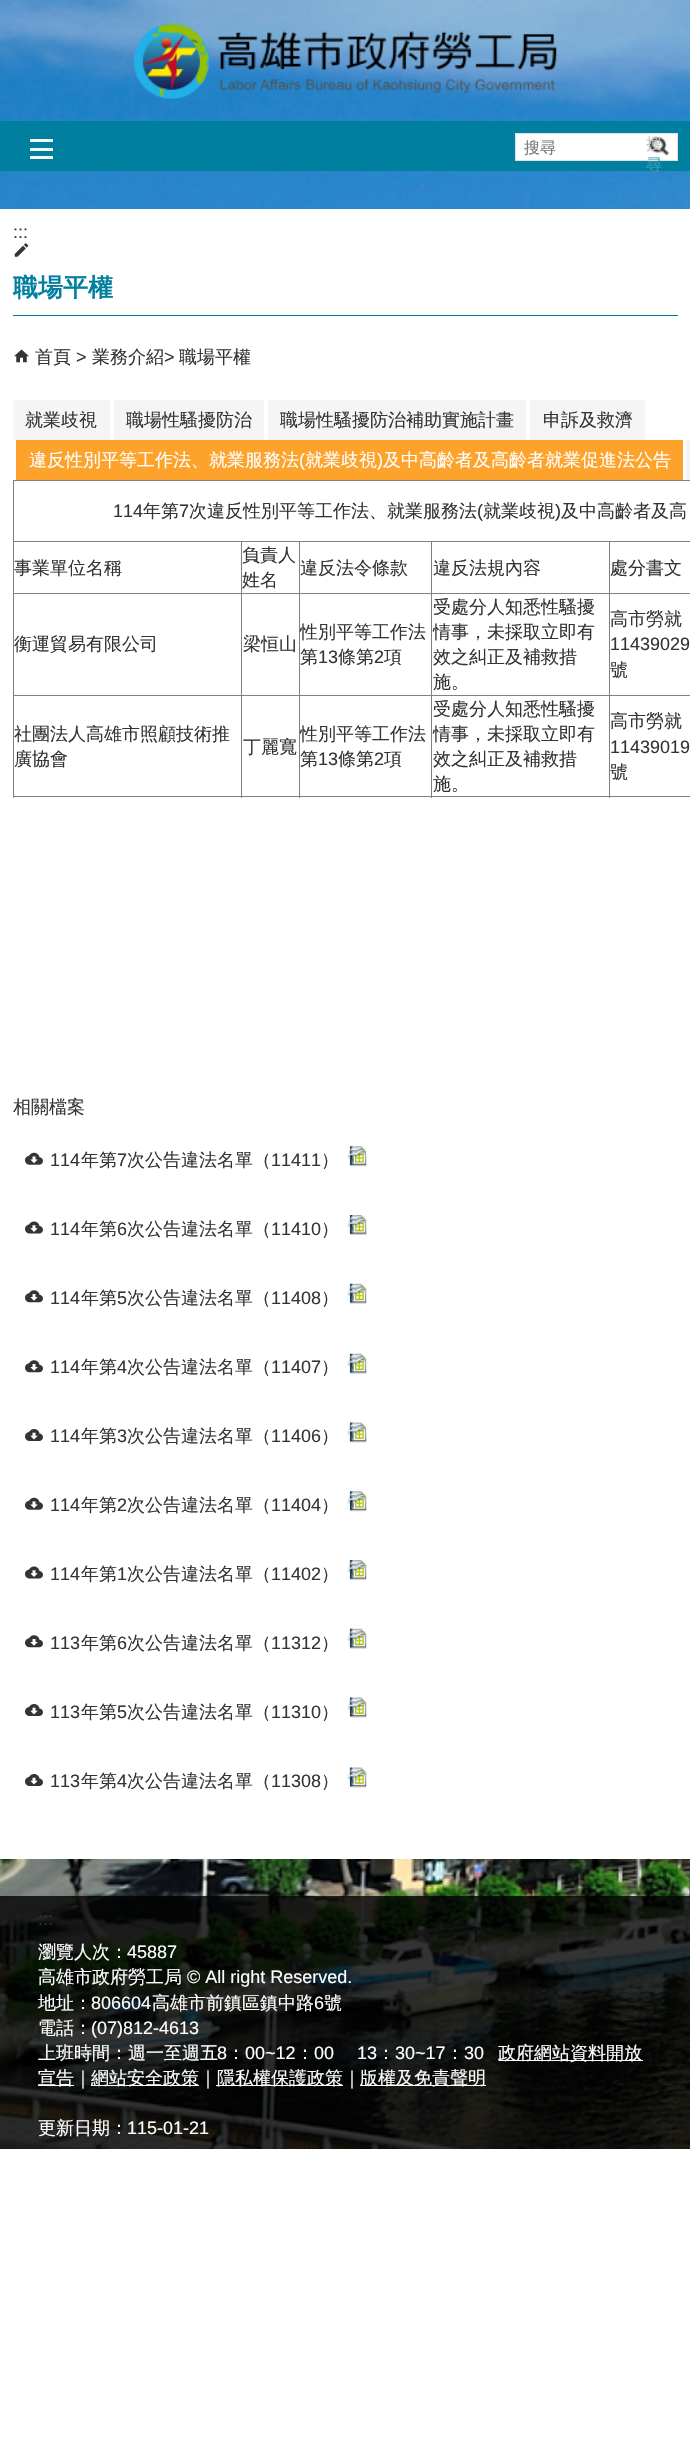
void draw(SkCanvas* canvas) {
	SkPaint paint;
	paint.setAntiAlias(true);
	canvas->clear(0xffffffff);
	canvas->drawImageRect(SkImages::DeferredFromEncodedData(SkData::MakeFromFileName("img1.png")), SkRect::MakeXYWH(0, 0, 690, 2149), SkSamplingOptions());
	paint.setColor(0xff007f9e);
	canvas->drawRect(SkRect::MakeXYWH(0, 121, 690, 50), paint);
	paint.setColor(0xfff5f5f5);
	canvas->drawRect(SkRect::MakeXYWH(30, 156, 23, 3), paint);
	canvas->drawRect(SkRect::MakeXYWH(30, 148, 23, 3), paint);
	canvas->drawRect(SkRect::MakeXYWH(30, 139, 23, 3), paint);
	canvas->drawImageRect(SkImages::DeferredFromEncodedData(SkData::MakeFromFileName("img2.png")), SkRect::MakeXYWH(133, 23, 424, 76), SkSamplingOptions());
	paint.setColor(0xffffffff);
	canvas->drawRect(SkRect::MakeXYWH(515.5, 133.5, 162, 27), paint);
	paint.setStroke(true);
	paint.setStrokeWidth(1);
	paint.setColor(0xffe0e0e0);
	canvas->drawRect(SkRect::MakeXYWH(515.5, 133.5, 162, 27), paint);
	SkFont f1(fontMgr->matchFamilyStyle("WenQuanYi Zen Hei", SkFontStyle(500, SkFontStyle::kNormal_Width, SkFontStyle::kUpright_Slant)), 16);
	f1.setSubpixel(true);
	paint.setStroke(false);
	paint.setColor(0xff757575);
	canvas->drawString("搜尋", 524, 153, f1, paint);
	canvas->drawImageRect(SkImages::DeferredFromEncodedData(SkData::MakeFromFileName("img3.png")), SkRect::MakeXYWH(646, 133, 24, 23), SkSamplingOptions());
	paint.setColor(0xffc2c2c2);
	canvas->drawString("搜", 646, 149, f1, paint);
	paint.setColor(0xff3f9db5);
	canvas->drawString("尋", 646, 170, f1, paint);
	paint.setColor(0xffffffff);
	canvas->drawRect(SkRect::MakeXYWH(0, 209, 690, 1650), paint);
	SkFont f2(fontMgr->matchFamilyStyle("Liberation Sans", SkFontStyle::Normal()), 18);
	f2.setSubpixel(true);
	paint.setColor(0xff343434);
	canvas->drawString(":::", 13, 238, f2, paint);
	canvas->drawImageRect(SkImages::DeferredFromEncodedData(SkData::MakeFromFileName("img4.png")), SkRect::MakeXYWH(14, 243, 15, 14), SkSamplingOptions());
	paint.setColor(0xff007f9e);
	canvas->drawRect(SkRect::MakeXYWH(13, 315, 665, 1), paint);
	SkFont f3(fontMgr->matchFamilyStyle("WenQuanYi Zen Hei", SkFontStyle::Bold()), 25);
	f3.setSubpixel(true);
	canvas->drawString("職場平權", 13, 296, f3, paint);
	canvas->drawImageRect(SkImages::DeferredFromEncodedData(SkData::MakeFromFileName("img5.png")), SkRect::MakeXYWH(14, 349, 15, 14), SkSamplingOptions());
	SkFont f4(fontMgr->matchFamilyStyle("WenQuanYi Zen Hei", SkFontStyle(500, SkFontStyle::kNormal_Width, SkFontStyle::kUpright_Slant)), 18);
	f4.setSubpixel(true);
	paint.setColor(0xff343434);
	canvas->drawString("首頁", 35, 363, f4, paint);
	canvas->drawString(">", 76, 363, f2, paint);
	canvas->drawString("業務介紹", 92, 363, f4, paint);
	canvas->drawString(">", 164, 363, f2, paint);
	canvas->drawString("職場平權", 179, 363, f4, paint);
	paint.setColor(0xfff5f5f5);
	canvas->drawRect(SkRect::MakeXYWH(13, 400, 97, 40), paint);
	paint.setColor(0xff343434);
	canvas->drawString("就業歧視", 25, 426, f4, paint);
	paint.setColor(0xfff5f5f5);
	canvas->drawRect(SkRect::MakeXYWH(114, 400, 150, 40), paint);
	paint.setColor(0xff343434);
	canvas->drawString("職場性騷擾防治", 126, 426, f4, paint);
	paint.setColor(0xfff5f5f5);
	canvas->drawRect(SkRect::MakeXYWH(268, 400, 258, 40), paint);
	paint.setColor(0xff343434);
	canvas->drawString("職場性騷擾防治補助實施計畫", 280, 426, f4, paint);
	paint.setColor(0xfff5f5f5);
	canvas->drawRect(SkRect::MakeXYWH(530, 400, 115, 40), paint);
	paint.setColor(0xff343434);
	canvas->drawString("申訴及救濟", 543, 426, f4, paint);
	paint.setColor(0xfffda22a);
	canvas->drawRect(SkRect::MakeXYWH(16, 440, 667, 40), paint);
	paint.setColor(0xffffffff);
	canvas->drawString("違反性別平等工作法、就業服務法", 29, 466, f4, paint);
	canvas->drawString("(", 299, 466, f2, paint);
	canvas->drawString("就業歧視", 305, 466, f4, paint);
	canvas->drawString(")", 377, 466, f2, paint);
	canvas->drawString("及中高齡者及高齡者就業促進法公告", 383, 466, f4, paint);
	paint.setColor(0xfff5f5f5);
	canvas->drawRect(SkRect::MakeXYWH(686, 440, 4, 40), paint);
	paint.setColor(0xff808080);
	canvas->drawRect(SkRect::MakeXYWH(13, 480, 677, 1), paint);
	canvas->drawRect(SkRect::MakeXYWH(13, 796, 677, 1), paint);
	canvas->drawRect(SkRect::MakeXYWH(13, 480, 1, 318), paint);
	paint.setColor(0xff343434);
	canvas->drawString("114", 113, 517, f2, paint);
	canvas->drawString("年第", 143, 517, f4, paint);
	canvas->drawString("7", 179, 517, f2, paint);
	canvas->drawString("次違反性別平等工作法、就業服務法", 189, 517, f4, paint);
	canvas->drawString("(", 477, 517, f2, paint);
	canvas->drawString("就業歧視", 483, 517, f4, paint);
	canvas->drawString(")", 555, 517, f2, paint);
	canvas->drawString("及中高齡者及高", 561, 517, f4, paint);
	paint.setColor(0xff808080);
	canvas->drawRect(SkRect::MakeXYWH(609, 541, 81, 1), paint);
	canvas->drawRect(SkRect::MakeXYWH(609, 593, 81, 1), paint);
	canvas->drawRect(SkRect::MakeXYWH(609, 695, 81, 1), paint);
	canvas->drawRect(SkRect::MakeXYWH(609, 695, 1, 103), paint);
	canvas->drawRect(SkRect::MakeXYWH(431, 695, 179, 1), paint);
	canvas->drawRect(SkRect::MakeXYWH(609, 593, 1, 103), paint);
	canvas->drawRect(SkRect::MakeXYWH(431, 593, 179, 1), paint);
	canvas->drawRect(SkRect::MakeXYWH(609, 541, 1, 53), paint);
	canvas->drawRect(SkRect::MakeXYWH(431, 541, 179, 1), paint);
	canvas->drawRect(SkRect::MakeXYWH(431, 695, 1, 103), paint);
	canvas->drawRect(SkRect::MakeXYWH(299, 695, 134, 1), paint);
	canvas->drawRect(SkRect::MakeXYWH(431, 593, 1, 103), paint);
	canvas->drawRect(SkRect::MakeXYWH(299, 593, 134, 1), paint);
	canvas->drawRect(SkRect::MakeXYWH(431, 541, 1, 53), paint);
	canvas->drawRect(SkRect::MakeXYWH(299, 541, 134, 1), paint);
	canvas->drawRect(SkRect::MakeXYWH(299, 695, 1, 103), paint);
	canvas->drawRect(SkRect::MakeXYWH(241, 695, 59, 1), paint);
	canvas->drawRect(SkRect::MakeXYWH(299, 593, 1, 103), paint);
	canvas->drawRect(SkRect::MakeXYWH(241, 593, 59, 1), paint);
	canvas->drawRect(SkRect::MakeXYWH(299, 541, 1, 53), paint);
	canvas->drawRect(SkRect::MakeXYWH(241, 541, 59, 1), paint);
	canvas->drawRect(SkRect::MakeXYWH(241, 695, 1, 103), paint);
	canvas->drawRect(SkRect::MakeXYWH(13, 695, 230, 1), paint);
	canvas->drawRect(SkRect::MakeXYWH(241, 593, 1, 103), paint);
	canvas->drawRect(SkRect::MakeXYWH(13, 593, 230, 1), paint);
	canvas->drawRect(SkRect::MakeXYWH(241, 541, 1, 53), paint);
	canvas->drawRect(SkRect::MakeXYWH(13, 541, 230, 1), paint);
	paint.setColor(0xff343434);
	canvas->drawString("事業單位名稱", 14, 574, f4, paint);
	canvas->drawString("負責人", 242, 561, f4, paint);
	canvas->drawString("姓名", 242, 586, f4, paint);
	canvas->drawString("違反法令條款", 300, 574, f4, paint);
	canvas->drawString("違反法規內容", 433, 574, f4, paint);
	canvas->drawString("處分書文", 610, 574, f4, paint);
	canvas->drawString("衡運貿易有限公司", 14, 650, f4, paint);
	canvas->drawString("梁恒山", 243, 650, f4, paint);
	canvas->drawString("性別平等工作法", 300, 638, f4, paint);
	canvas->drawString("第", 300, 663, f4, paint);
	canvas->drawString("13", 318, 663, f2, paint);
	canvas->drawString("條第", 338, 663, f4, paint);
	canvas->drawString("2", 374, 663, f2, paint);
	canvas->drawString("項", 384, 663, f4, paint);
	canvas->drawString("受處分人知悉性騷擾", 433, 613, f4, paint);
	canvas->drawString("情事，未採取立即有", 433, 638, f4, paint);
	canvas->drawString("效之糾正及補救措", 433, 663, f4, paint);
	canvas->drawString("施。", 433, 688, f4, paint);
	canvas->drawString("高市勞就", 610, 625, f4, paint);
	canvas->drawString("11439029", 610, 650, f2, paint);
	canvas->drawString("號", 610, 676, f4, paint);
	canvas->drawString("社團法人高雄市照顧技術推", 14, 740, f4, paint);
	canvas->drawString("廣協會", 14, 765, f4, paint);
	canvas->drawString("丁麗寬", 243, 753, f4, paint);
	canvas->drawString("性別平等工作法", 300, 740, f4, paint);
	canvas->drawString("第", 300, 765, f4, paint);
	canvas->drawString("13", 318, 765, f2, paint);
	canvas->drawString("條第", 338, 765, f4, paint);
	canvas->drawString("2", 374, 765, f2, paint);
	canvas->drawString("項", 384, 765, f4, paint);
	canvas->drawString("受處分人知悉性騷擾", 433, 715, f4, paint);
	canvas->drawString("情事，未採取立即有", 433, 740, f4, paint);
	canvas->drawString("效之糾正及補救措", 433, 765, f4, paint);
	canvas->drawString("施。", 433, 790, f4, paint);
	canvas->drawString("高市勞就", 610, 727, f4, paint);
	canvas->drawString("11439019", 610, 753, f2, paint);
	canvas->drawString("號", 610, 778, f4, paint);
	canvas->drawString("相關檔案", 13, 1113, f4, paint);
	canvas->drawImageRect(SkImages::DeferredFromEncodedData(SkData::MakeFromFileName("img6.png")), SkRect::MakeXYWH(25, 1152, 18, 13), SkSamplingOptions());
	canvas->drawString("114", 50, 1166, f2, paint);
	canvas->drawString("年第", 81, 1166, f4, paint);
	canvas->drawString("7", 117, 1166, f2, paint);
	canvas->drawString("次公告違法名單（", 127, 1166, f4, paint);
	canvas->drawString("11411", 271, 1166, f2, paint);
	canvas->drawString("）", 321, 1166, f4, paint);
	canvas->drawImageRect(SkImages::DeferredFromEncodedData(SkData::MakeFromFileName("img7.png")), SkRect::MakeXYWH(347, 1146, 20, 21), SkSamplingOptions());
	canvas->drawImageRect(SkImages::DeferredFromEncodedData(SkData::MakeFromFileName("img8.png")), SkRect::MakeXYWH(25, 1221, 18, 13), SkSamplingOptions());
	canvas->drawString("114", 50, 1235, f2, paint);
	canvas->drawString("年第", 81, 1235, f4, paint);
	canvas->drawString("6", 117, 1235, f2, paint);
	canvas->drawString("次公告違法名單（", 127, 1235, f4, paint);
	canvas->drawString("11410", 271, 1235, f2, paint);
	canvas->drawString("）", 321, 1235, f4, paint);
	canvas->drawImageRect(SkImages::DeferredFromEncodedData(SkData::MakeFromFileName("img9.png")), SkRect::MakeXYWH(347, 1215, 20, 20), SkSamplingOptions());
	canvas->drawImageRect(SkImages::DeferredFromEncodedData(SkData::MakeFromFileName("img10.png")), SkRect::MakeXYWH(25, 1290, 18, 13), SkSamplingOptions());
	canvas->drawString("114", 50, 1304, f2, paint);
	canvas->drawString("年第", 81, 1304, f4, paint);
	canvas->drawString("5", 117, 1304, f2, paint);
	canvas->drawString("次公告違法名單（", 127, 1304, f4, paint);
	canvas->drawString("11408", 271, 1304, f2, paint);
	canvas->drawString("）", 321, 1304, f4, paint);
	canvas->drawImageRect(SkImages::DeferredFromEncodedData(SkData::MakeFromFileName("img11.png")), SkRect::MakeXYWH(347, 1283, 20, 21), SkSamplingOptions());
	canvas->drawImageRect(SkImages::DeferredFromEncodedData(SkData::MakeFromFileName("img10.png")), SkRect::MakeXYWH(25, 1360, 18, 13), SkSamplingOptions());
	canvas->drawString("114", 50, 1373, f2, paint);
	canvas->drawString("年第", 81, 1373, f4, paint);
	canvas->drawString("4", 117, 1373, f2, paint);
	canvas->drawString("次公告違法名單（", 127, 1373, f4, paint);
	canvas->drawString("11407", 271, 1373, f2, paint);
	canvas->drawString("）", 321, 1373, f4, paint);
	canvas->drawImageRect(SkImages::DeferredFromEncodedData(SkData::MakeFromFileName("img11.png")), SkRect::MakeXYWH(347, 1353, 20, 21), SkSamplingOptions());
	canvas->drawImageRect(SkImages::DeferredFromEncodedData(SkData::MakeFromFileName("img12.png")), SkRect::MakeXYWH(25, 1429, 18, 12), SkSamplingOptions());
	canvas->drawString("114", 50, 1442, f2, paint);
	canvas->drawString("年第", 81, 1442, f4, paint);
	canvas->drawString("3", 117, 1442, f2, paint);
	canvas->drawString("次公告違法名單（", 127, 1442, f4, paint);
	canvas->drawString("11406", 271, 1442, f2, paint);
	canvas->drawString("）", 321, 1442, f4, paint);
	canvas->drawImageRect(SkImages::DeferredFromEncodedData(SkData::MakeFromFileName("img13.png")), SkRect::MakeXYWH(347, 1422, 20, 21), SkSamplingOptions());
	canvas->drawImageRect(SkImages::DeferredFromEncodedData(SkData::MakeFromFileName("img6.png")), SkRect::MakeXYWH(25, 1497, 18, 13), SkSamplingOptions());
	canvas->drawString("114", 50, 1511, f2, paint);
	canvas->drawString("年第", 81, 1511, f4, paint);
	canvas->drawString("2", 117, 1511, f2, paint);
	canvas->drawString("次公告違法名單（", 127, 1511, f4, paint);
	canvas->drawString("11404", 271, 1511, f2, paint);
	canvas->drawString("）", 321, 1511, f4, paint);
	canvas->drawImageRect(SkImages::DeferredFromEncodedData(SkData::MakeFromFileName("img7.png")), SkRect::MakeXYWH(347, 1491, 20, 21), SkSamplingOptions());
	canvas->drawImageRect(SkImages::DeferredFromEncodedData(SkData::MakeFromFileName("img8.png")), SkRect::MakeXYWH(25, 1566, 18, 13), SkSamplingOptions());
	canvas->drawString("114", 50, 1580, f2, paint);
	canvas->drawString("年第", 81, 1580, f4, paint);
	canvas->drawString("1", 117, 1580, f2, paint);
	canvas->drawString("次公告違法名單（", 127, 1580, f4, paint);
	canvas->drawString("11402", 271, 1580, f2, paint);
	canvas->drawString("）", 321, 1580, f4, paint);
	canvas->drawImageRect(SkImages::DeferredFromEncodedData(SkData::MakeFromFileName("img14.png")), SkRect::MakeXYWH(347, 1560, 20, 20), SkSamplingOptions());
	canvas->drawImageRect(SkImages::DeferredFromEncodedData(SkData::MakeFromFileName("img10.png")), SkRect::MakeXYWH(25, 1635, 18, 13), SkSamplingOptions());
	canvas->drawString("113", 50, 1649, f2, paint);
	canvas->drawString("年第", 81, 1649, f4, paint);
	canvas->drawString("6", 117, 1649, f2, paint);
	canvas->drawString("次公告違法名單（", 127, 1649, f4, paint);
	canvas->drawString("11312", 271, 1649, f2, paint);
	canvas->drawString("）", 321, 1649, f4, paint);
	canvas->drawImageRect(SkImages::DeferredFromEncodedData(SkData::MakeFromFileName("img11.png")), SkRect::MakeXYWH(347, 1628, 20, 21), SkSamplingOptions());
	canvas->drawImageRect(SkImages::DeferredFromEncodedData(SkData::MakeFromFileName("img12.png")), SkRect::MakeXYWH(25, 1704, 18, 12), SkSamplingOptions());
	canvas->drawString("113", 50, 1718, f2, paint);
	canvas->drawString("年第", 81, 1718, f4, paint);
	canvas->drawString("5", 117, 1718, f2, paint);
	canvas->drawString("次公告違法名單（", 127, 1718, f4, paint);
	canvas->drawString("11310", 271, 1718, f2, paint);
	canvas->drawString("）", 321, 1718, f4, paint);
	canvas->drawImageRect(SkImages::DeferredFromEncodedData(SkData::MakeFromFileName("img13.png")), SkRect::MakeXYWH(347, 1697, 20, 21), SkSamplingOptions());
	canvas->drawImageRect(SkImages::DeferredFromEncodedData(SkData::MakeFromFileName("img12.png")), SkRect::MakeXYWH(25, 1774, 18, 12), SkSamplingOptions());
	canvas->drawString("113", 50, 1787, f2, paint);
	canvas->drawString("年第", 81, 1787, f4, paint);
	canvas->drawString("4", 117, 1787, f2, paint);
	canvas->drawString("次公告違法名單（", 127, 1787, f4, paint);
	canvas->drawString("11308", 271, 1787, f2, paint);
	canvas->drawString("）", 321, 1787, f4, paint);
	canvas->drawImageRect(SkImages::DeferredFromEncodedData(SkData::MakeFromFileName("img13.png")), SkRect::MakeXYWH(347, 1767, 20, 21), SkSamplingOptions());
	paint.setColor(0xcc000000);
	canvas->drawRect(SkRect::MakeXYWH(0, 1896, 690, 253), paint);
	paint.setColor(0xff343434);
	canvas->drawString(":::", 38, 1925, f2, paint);
	paint.setColor(0xffffffff);
	canvas->drawString("瀏覽人次：", 38, 1958, f4, paint);
	canvas->drawString("45887", 127, 1958, f2, paint);
	canvas->drawString("高雄市政府勞工局", 38, 1983, f4, paint);
	canvas->drawString("© All right Reserved.", 187, 1983, f2, paint);
	canvas->drawString("地址：", 38, 2009, f4, paint);
	canvas->drawString("806604", 91, 2009, f2, paint);
	canvas->drawString("高雄市前鎮區鎮中路", 152, 2009, f4, paint);
	canvas->drawString("6", 314, 2009, f2, paint);
	canvas->drawString("號", 324, 2009, f4, paint);
	canvas->drawString("電話：", 38, 2034, f4, paint);
	canvas->drawString("(07)812-4613", 91, 2034, f2, paint);
	canvas->drawString("上班時間：週一至週五", 38, 2059, f4, paint);
	canvas->drawString("8", 217, 2059, f2, paint);
	canvas->drawString("：", 227, 2059, f4, paint);
	canvas->drawString("00~12", 245, 2059, f2, paint);
	canvas->drawString("：", 296, 2059, f4, paint);
	canvas->drawString("00", 314, 2059, f2, paint);
	canvas->drawString("13", 357, 2059, f2, paint);
	canvas->drawString("：", 377, 2059, f4, paint);
	canvas->drawString("30~17", 395, 2059, f2, paint);
	canvas->drawString("：", 446, 2059, f4, paint);
	canvas->drawString("30", 464, 2059, f2, paint);
	canvas->drawRect(SkRect::MakeXYWH(499, 2060, 144, 1), paint);
	canvas->drawString("政府網站資料開放", 498, 2059, f4, paint);
	canvas->drawRect(SkRect::MakeXYWH(38, 2085, 36, 1), paint);
	canvas->drawString("宣告｜", 38, 2084, f4, paint);
	canvas->drawRect(SkRect::MakeXYWH(91, 2085, 108, 1), paint);
	canvas->drawString("網站安全政策｜", 91, 2084, f4, paint);
	canvas->drawRect(SkRect::MakeXYWH(216, 2085, 127, 1), paint);
	canvas->drawString("隱私權保護政策｜", 217, 2084, f4, paint);
	canvas->drawRect(SkRect::MakeXYWH(360, 2085, 126, 1), paint);
	canvas->drawString("版權及免責聲明", 360, 2084, f4, paint);
	canvas->drawString("更新日期：", 38, 2134, f4, paint);
	canvas->drawString("115-01-21", 127, 2134, f2, paint);
}
